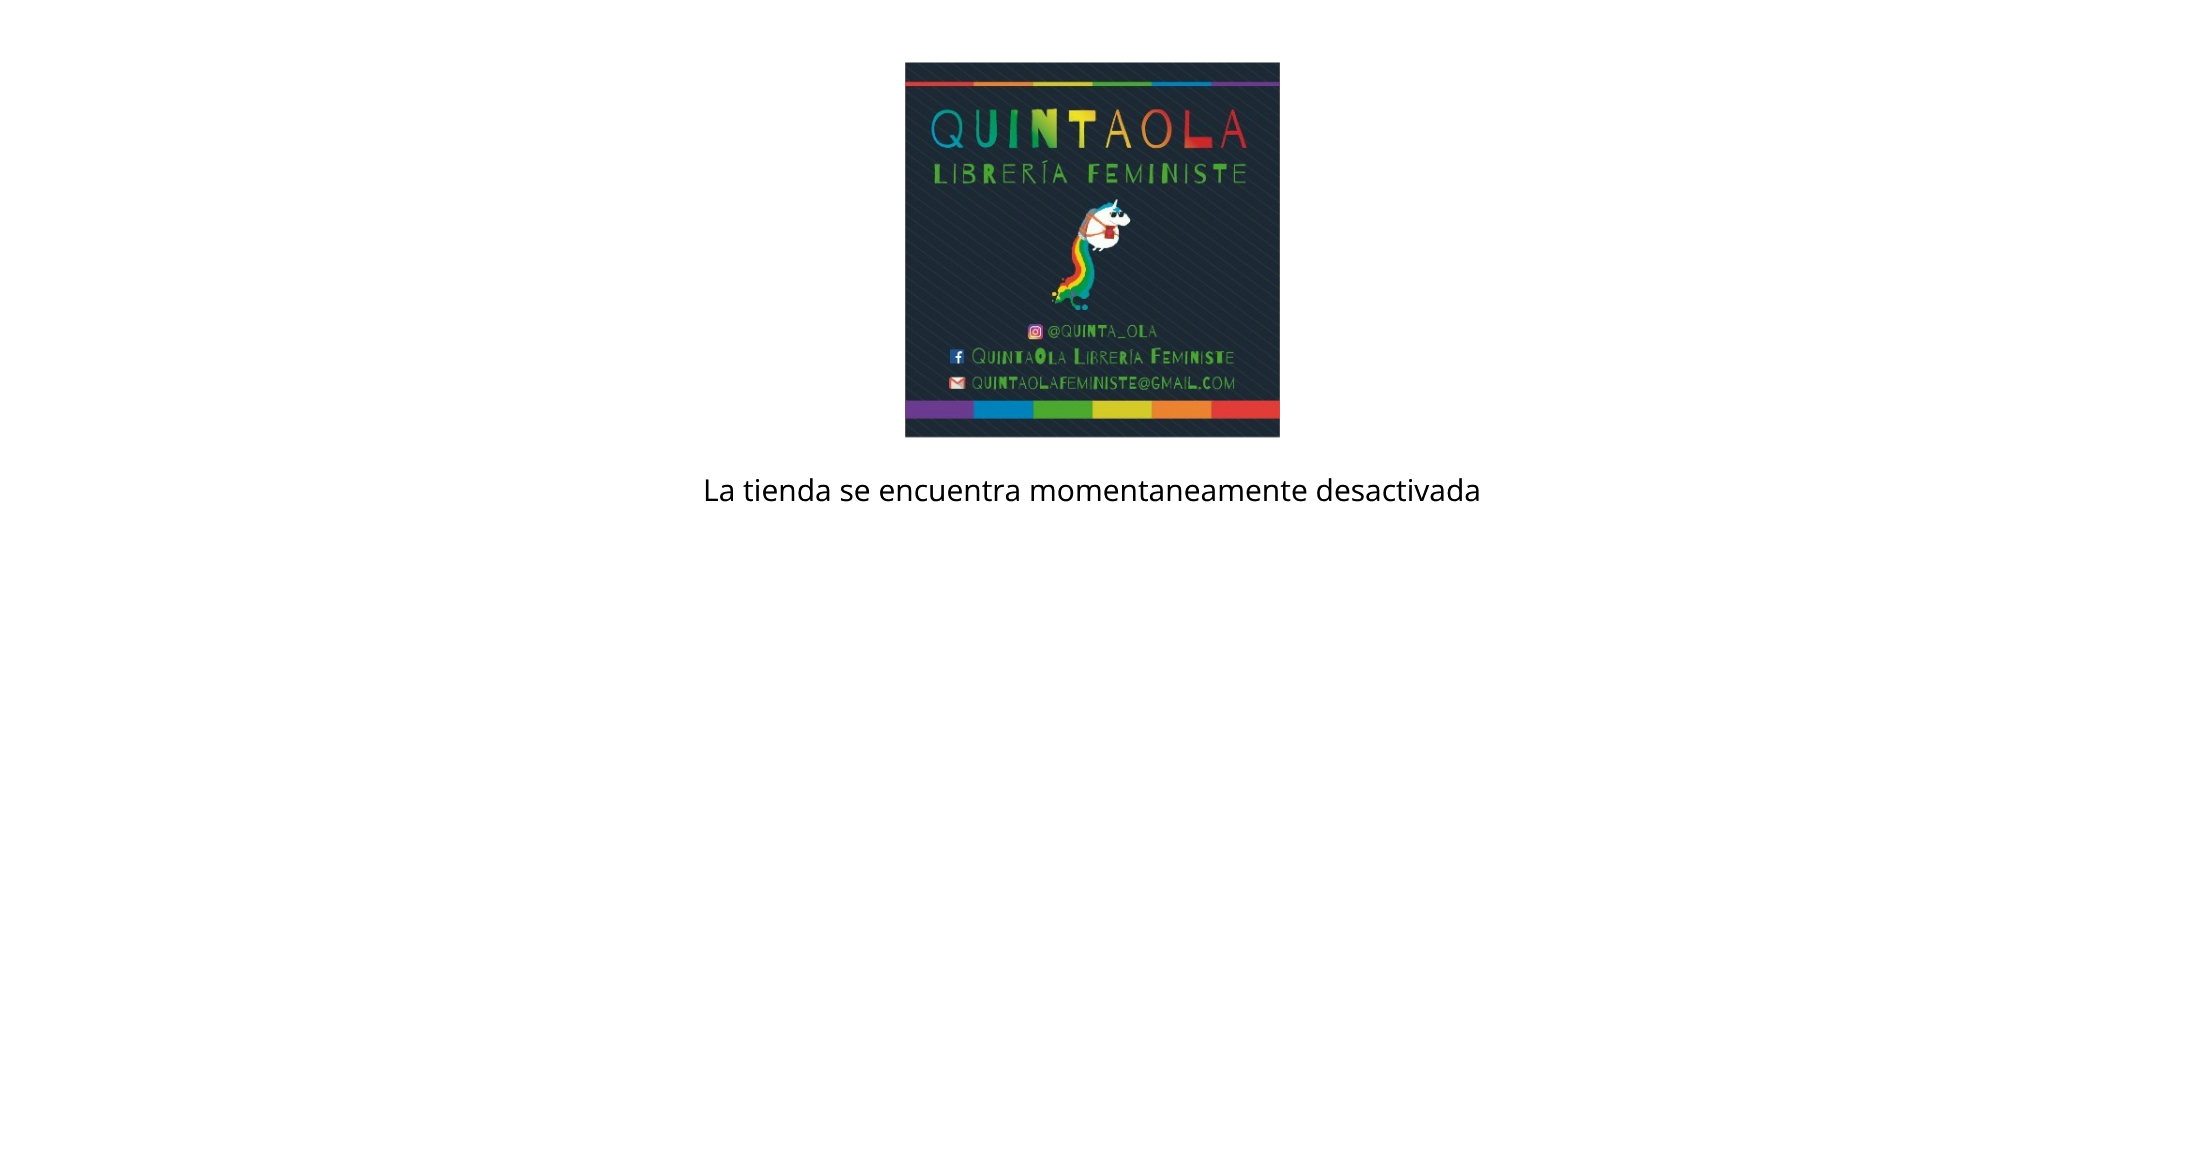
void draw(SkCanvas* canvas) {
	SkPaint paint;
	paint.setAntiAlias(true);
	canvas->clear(0xffffffff);
	canvas->drawImageRect(SkImages::DeferredFromEncodedData(SkData::MakeFromFileName("img1.png")), SkRect::MakeXYWH(905, 62, 375, 376), SkSamplingOptions());
	SkFont f1(fontMgr->matchFamilyStyle("Open Sans", SkFontStyle::Normal()), 30);
	f1.setSubpixel(true);
	paint.setColor(0xff000000);
	canvas->drawString("La tienda se encuentra momentaneamente desactivada", 703, 501, f1, paint);
}
